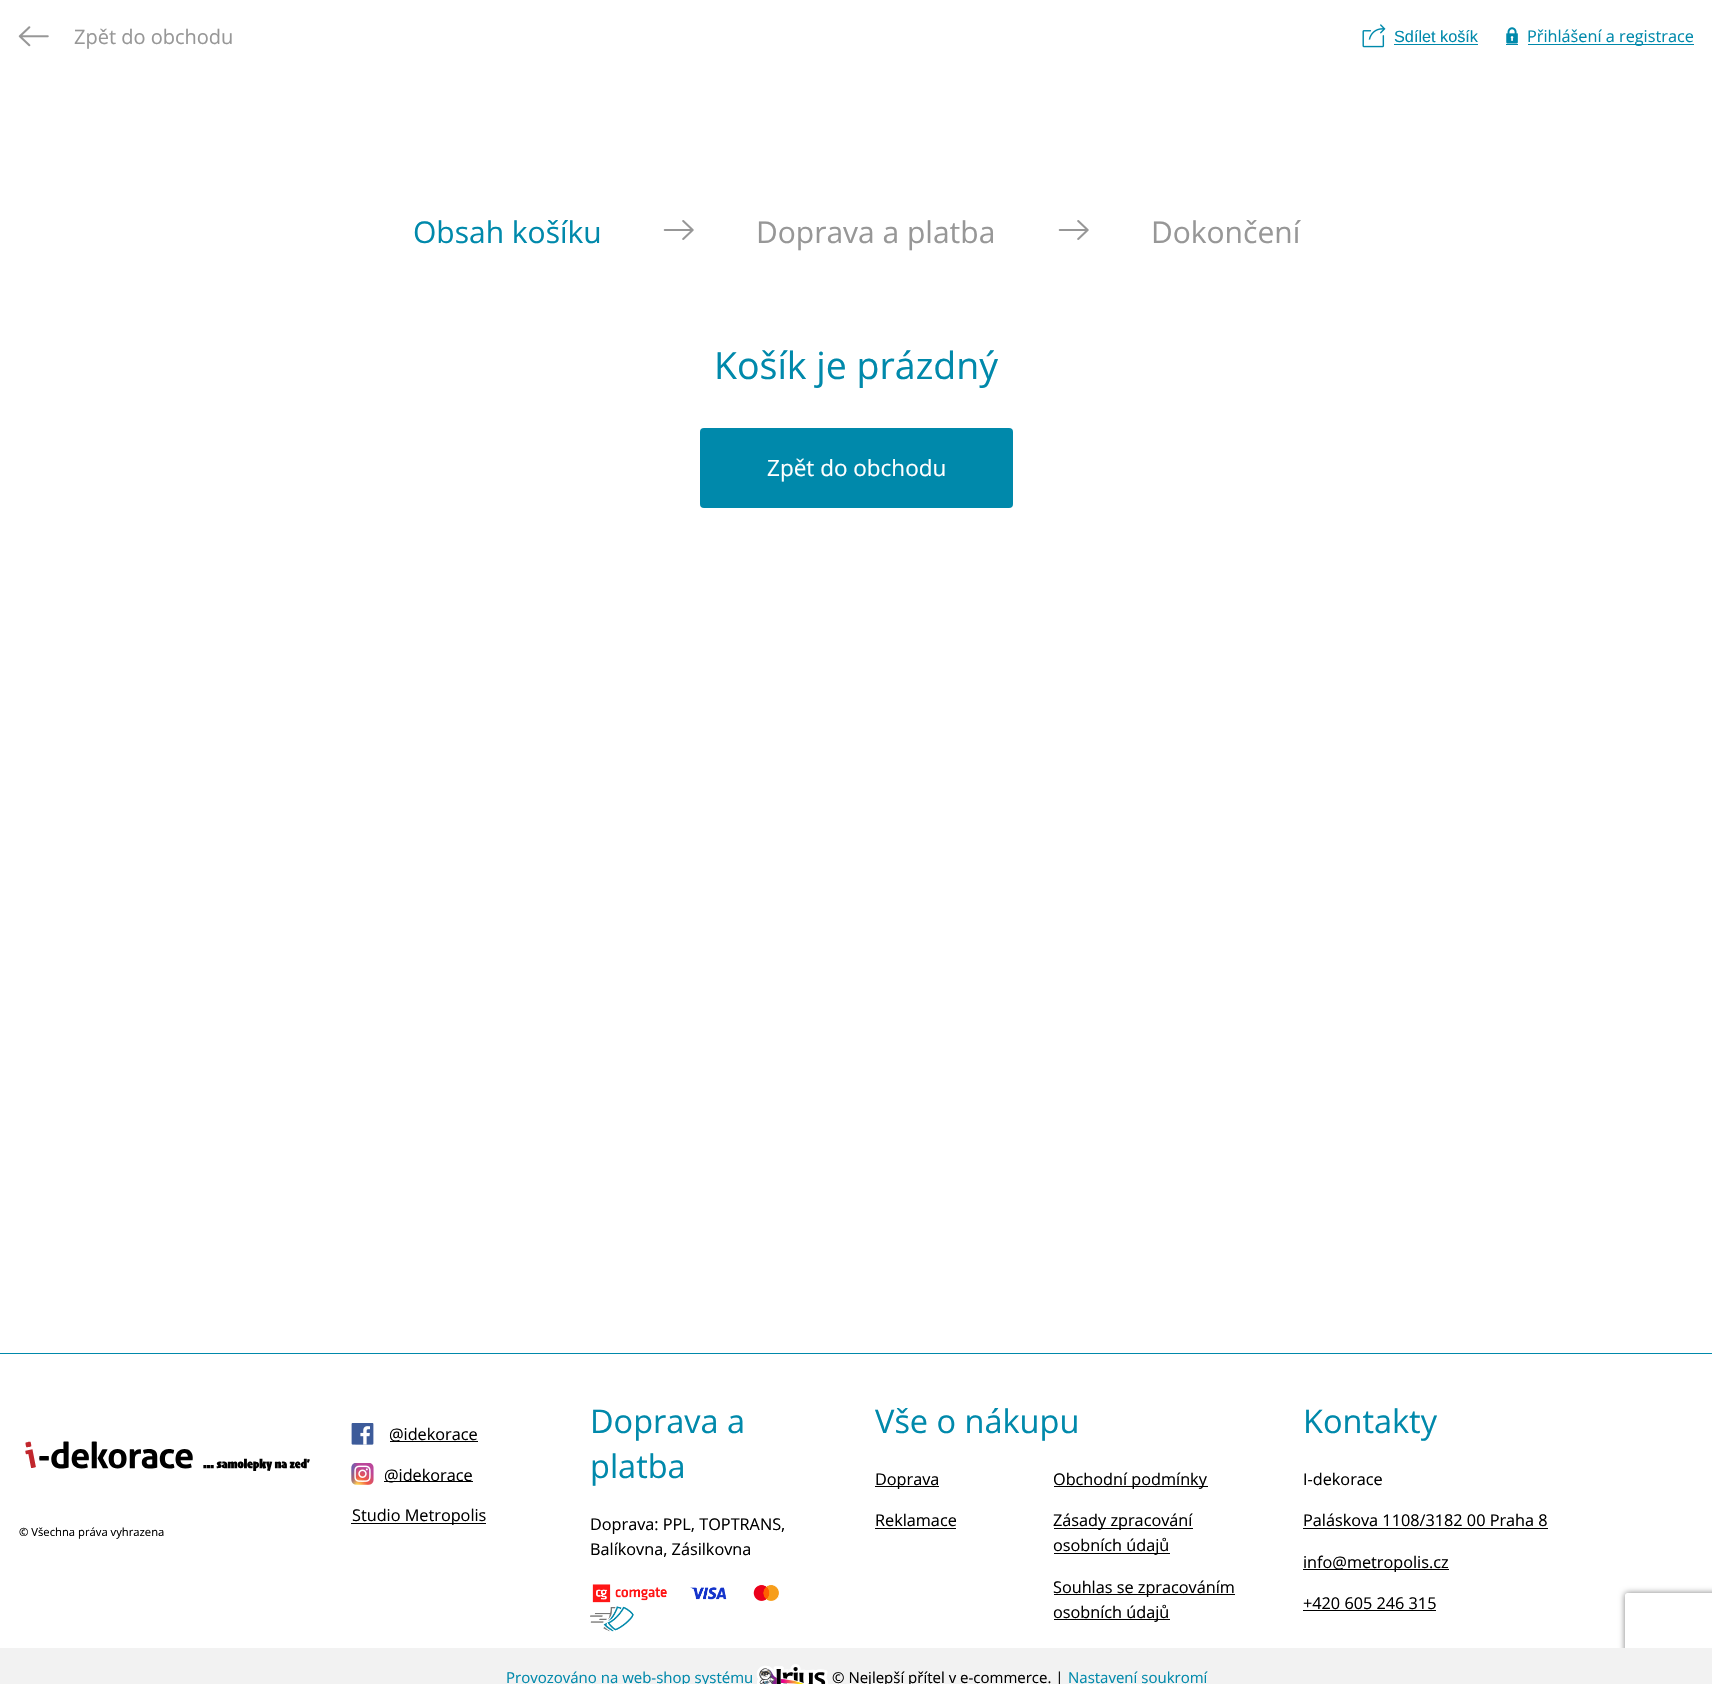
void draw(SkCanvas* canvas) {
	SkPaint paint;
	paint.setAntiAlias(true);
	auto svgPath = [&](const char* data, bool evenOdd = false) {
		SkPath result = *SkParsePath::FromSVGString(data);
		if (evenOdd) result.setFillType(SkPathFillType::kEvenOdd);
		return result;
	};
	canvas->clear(0xffffffff);
	canvas->drawImageRect(SkImages::DeferredFromEncodedData(SkData::MakeFromFileName("img1.png")), SkRect::MakeXYWH(18, 26, 31, 21), SkSamplingOptions());
	SkFont f1(fontMgr->matchFamilyStyle("Open Sans", SkFontStyle::Normal()), 20);
	f1.setSubpixel(true);
	paint.setColor(0xff979797);
	canvas->drawString("Zpět do obchodu", 74, 44, f1, paint);
	canvas->drawImageRect(SkImages::DeferredFromEncodedData(SkData::MakeFromFileName("img2.png")), SkRect::MakeXYWH(1362, 24, 24, 24), SkSamplingOptions());
	SkFont f2(fontMgr->matchFamilyStyle("Liberation Sans", SkFontStyle::Normal()), 16.25);
	f2.setSubpixel(true);
	paint.setColor(0xff0089ab);
	canvas->drawString("Sdílet košík", 1394, 42, f2, paint);
	canvas->drawRect(SkRect::MakeXYWH(1394, 44, 84, 1), paint);
	canvas->drawImageRect(SkImages::DeferredFromEncodedData(SkData::MakeFromFileName("img3.png")), SkRect::MakeXYWH(1506, 27, 12, 17), SkSamplingOptions());
	canvas->drawRect(SkRect::MakeXYWH(1528, 44, 166, 1), paint);
	SkFont f3(fontMgr->matchFamilyStyle("Open Sans", SkFontStyle::Normal()), 16.25);
	f3.setSubpixel(true);
	canvas->drawString("Přihlášení a registrace", 1527, 42, f3, paint);
	canvas->drawRect(SkRect::MakeXYWH(1506, 44, 12, 1), paint);
	SkFont f4(fontMgr->matchFamilyStyle("Open Sans", SkFontStyle::Normal()), 30);
	f4.setSubpixel(true);
	canvas->drawString("Obsah košíku", 413, 243, f4, paint);
	canvas->drawImageRect(SkImages::DeferredFromEncodedData(SkData::MakeFromFileName("img4.png")), SkRect::MakeXYWH(663, 220, 31, 20), SkSamplingOptions());
	paint.setColor(0xff979797);
	canvas->drawString("Doprava a platba", 756, 243, f4, paint);
	canvas->drawImageRect(SkImages::DeferredFromEncodedData(SkData::MakeFromFileName("img4.png")), SkRect::MakeXYWH(1058, 220, 31, 20), SkSamplingOptions());
	canvas->drawString("Dokončení", 1151, 243, f4, paint);
	SkFont f5(fontMgr->matchFamilyStyle("Open Sans", SkFontStyle::Normal()), 37.5);
	f5.setSubpixel(true);
	paint.setColor(0xff0089ab);
	canvas->drawString("Košík je prázdný", 714, 379, f5, paint);
	canvas->drawRoundRect(SkRect::MakeXYWH(700, 428, 313, 80), 4, 4, paint);
	SkFont f6(fontMgr->matchFamilyStyle("Open Sans", SkFontStyle::Normal()), 22.5);
	f6.setSubpixel(true);
	paint.setColor(0xffffffff);
	canvas->drawString("Zpět do obchodu", 767, 476, f6, paint);
	paint.setColor(0xff0089ab);
	canvas->drawRect(SkRect::MakeXYWH(0, 1353, 1712, 1), paint);
	canvas->drawImageRect(SkImages::DeferredFromEncodedData(SkData::MakeFromFileName("img5.png")), SkRect::MakeXYWH(351, 1423, 23, 22), SkSamplingOptions());
	paint.setColor(0xff000000);
	canvas->drawRect(SkRect::MakeXYWH(390, 1441, 88, 1), paint);
	canvas->drawString("@idekorace", 389, 1440, f3, paint);
	canvas->drawImageRect(SkImages::DeferredFromEncodedData(SkData::MakeFromFileName("img6.png")), SkRect::MakeXYWH(351, 1463, 23, 22), SkSamplingOptions());
	canvas->drawRect(SkRect::MakeXYWH(384, 1481, 89, 1), paint);
	canvas->drawString("@idekorace", 384, 1481, f3, paint);
	canvas->drawRect(SkRect::MakeXYWH(351, 1523, 135, 1), paint);
	canvas->drawString("Studio Metropolis", 352, 1521, f3, paint);
	canvas->drawImageRect(SkImages::DeferredFromEncodedData(SkData::MakeFromFileName("img7.png")), SkRect::MakeXYWH(25, 1441, 285, 30), SkSamplingOptions());
	SkFont f7(fontMgr->matchFamilyStyle("Open Sans", SkFontStyle::Normal()), 11.25);
	f7.setSubpixel(true);
	canvas->drawString("© Všechna práva vyhrazena", 19, 1536, f7, paint);
	SkFont f8(fontMgr->matchFamilyStyle("Open Sans", SkFontStyle::Normal()), 32.5);
	f8.setSubpixel(true);
	paint.setColor(0xff0089ab);
	canvas->drawString("Doprava a", 590, 1433, f8, paint);
	canvas->drawString("platba", 590, 1478, f8, paint);
	paint.setColor(0xff000000);
	canvas->drawString("Doprava: PPL, TOPTRANS,", 590, 1530, f3, paint);
	canvas->drawString("Balíkovna, Zásilkovna", 590, 1555, f3, paint);
	canvas->drawImageRect(SkImages::DeferredFromEncodedData(SkData::MakeFromFileName("img8.png")), SkRect::MakeXYWH(592, 1584, 187, 19), SkSamplingOptions());
	canvas->drawImageRect(SkImages::DeferredFromEncodedData(SkData::MakeFromFileName("img9.png")), SkRect::MakeXYWH(590, 1606, 44, 26), SkSamplingOptions());
	paint.setColor(0xff0089ab);
	canvas->drawString("Vše o nákupu", 875, 1433, f8, paint);
	paint.setColor(0xff000000);
	canvas->drawRect(SkRect::MakeXYWH(875, 1486, 64, 1), paint);
	canvas->drawString("Doprava", 875, 1485, f3, paint);
	canvas->drawString("Reklamace", 875, 1526, f3, paint);
	canvas->drawRect(SkRect::MakeXYWH(875, 1528, 81, 1), paint);
	canvas->drawRect(SkRect::MakeXYWH(1054, 1486, 154, 1), paint);
	canvas->drawString("Obchodní podmínky", 1053, 1485, f3, paint);
	canvas->drawRect(SkRect::MakeXYWH(1054, 1528, 139, 1), paint);
	canvas->drawString("Zásady zpracování", 1053, 1526, f3, paint);
	canvas->drawRect(SkRect::MakeXYWH(1054, 1553, 116, 1), paint);
	canvas->drawString("osobních údajů", 1053, 1551, f3, paint);
	canvas->drawRect(SkRect::MakeXYWH(1054, 1594, 181, 1), paint);
	canvas->drawString("Souhlas se zpracováním", 1053, 1593, f3, paint);
	canvas->drawRect(SkRect::MakeXYWH(1054, 1619, 116, 1), paint);
	canvas->drawString("osobních údajů", 1053, 1618, f3, paint);
	paint.setColor(0xff0089ab);
	canvas->drawString("Kontakty", 1303, 1433, f8, paint);
	paint.setColor(0xff000000);
	canvas->drawString("I-dekorace", 1303, 1485, f3, paint);
	canvas->drawString("Paláskova 1108/3182 00 Praha 8", 1303, 1526, f3, paint);
	canvas->drawRect(SkRect::MakeXYWH(1303, 1528, 245, 1), paint);
	canvas->drawRect(SkRect::MakeXYWH(1303, 1569, 146, 1), paint);
	canvas->drawString("info@metropolis.cz", 1303, 1568, f3, paint);
	canvas->drawString("+420 605 246 315", 1303, 1609, f3, paint);
	canvas->drawRect(SkRect::MakeXYWH(1303, 1610, 133, 1), paint);
	canvas->save();
	canvas->clipPath(svgPath("M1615 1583H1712V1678H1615ZM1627.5 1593H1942.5C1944 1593 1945 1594 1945 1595.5V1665.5C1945 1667 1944 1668 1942.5 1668H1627.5C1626 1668 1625 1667 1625 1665.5V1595.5C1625 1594 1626 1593 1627.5 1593Z", true), true);
	paint.setColor(0xff808080);
	paint.setMaskFilter(SkMaskFilter::MakeBlur(kNormal_SkBlurStyle, 3));
	canvas->drawRoundRect(SkRect::MakeXYWH(1625, 1593, 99, 75), 2.5, 2.5, paint);
	paint.setMaskFilter(nullptr);
	canvas->restore();
	paint.setColor(0xfff2f2f2);
	canvas->drawRect(SkRect::MakeXYWH(0, 1648, 1712, 36), paint);
	SkFont f9(fontMgr->matchFamilyStyle("Open Sans", SkFontStyle::Normal()), 15);
	f9.setSubpixel(true);
	paint.setColor(0xff0089ab);
	canvas->drawString("Provozováno na web-shop systému", 506, 1683, f9, paint);
	canvas->drawImageRect(SkImages::DeferredFromEncodedData(SkData::MakeFromFileName("img10.png")), SkRect::MakeXYWH(756, 1664, 72, 20), SkSamplingOptions());
	paint.setColor(0xff000000);
	canvas->drawString("© Nejlepší přítel v e-commerce. |", 832, 1683, f9, paint);
	paint.setColor(0xff0089ab);
	canvas->drawString("Nastavení soukromí", 1068, 1683, f9, paint);
}
